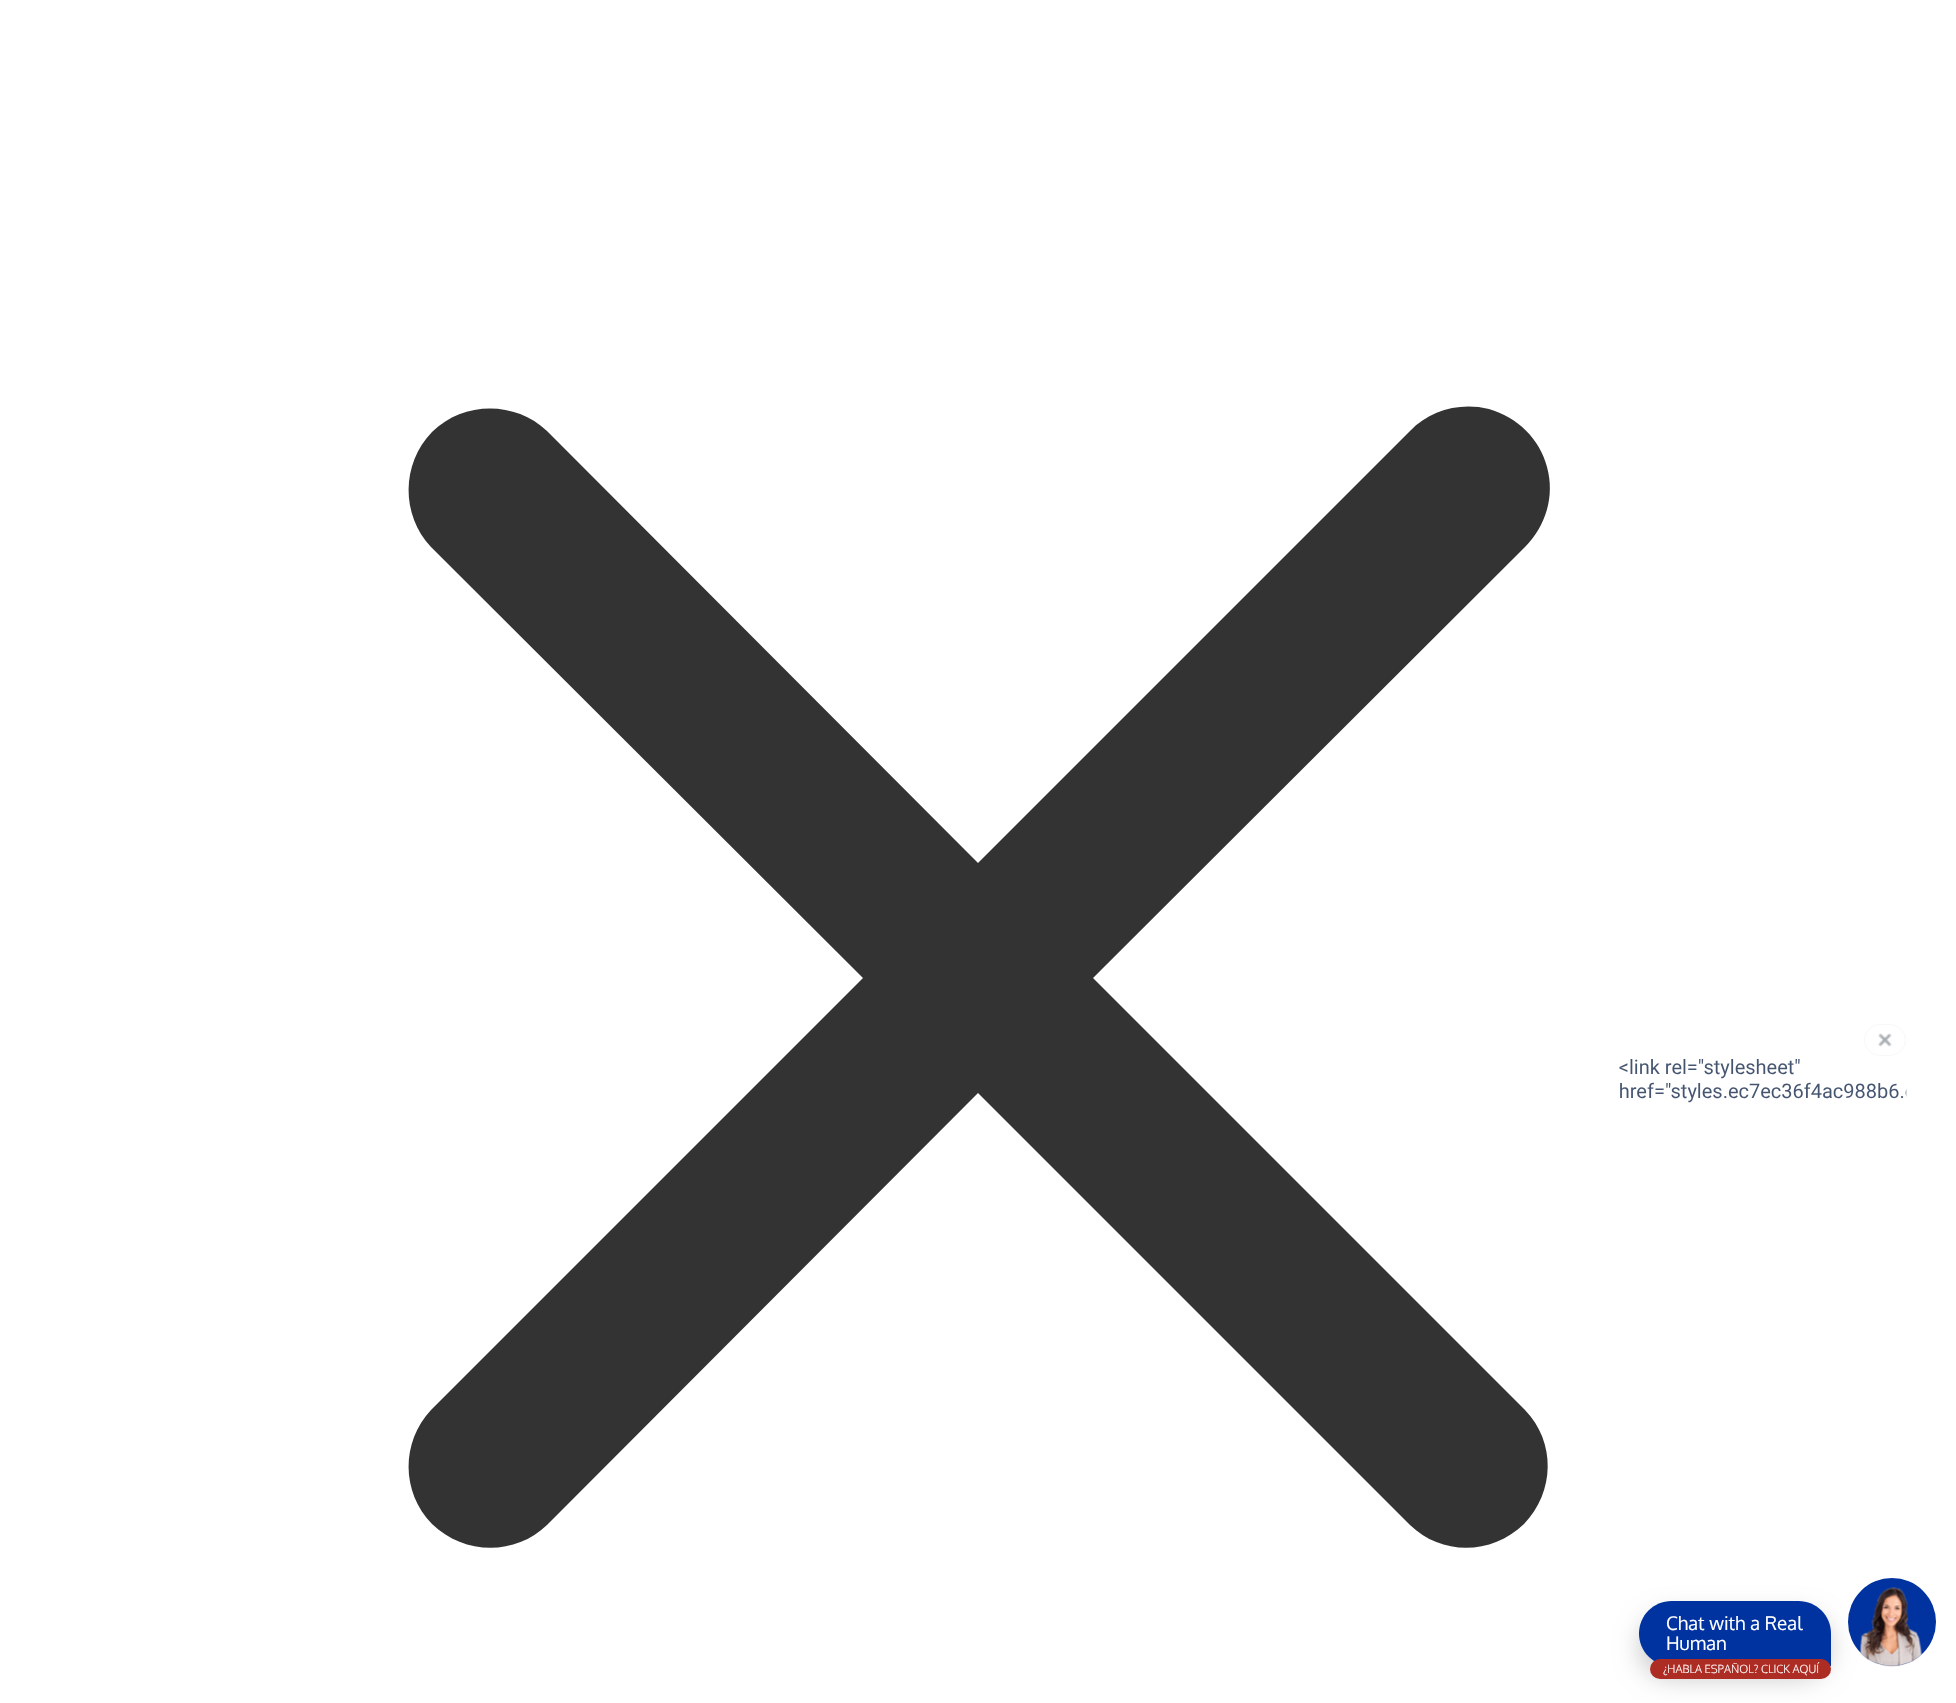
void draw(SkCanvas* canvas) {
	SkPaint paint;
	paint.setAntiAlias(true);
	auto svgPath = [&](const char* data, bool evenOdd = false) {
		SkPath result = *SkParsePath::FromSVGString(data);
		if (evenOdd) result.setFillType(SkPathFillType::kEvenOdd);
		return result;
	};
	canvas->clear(0xffffffff);
	paint.setColor(0xff333333);
	canvas->drawPath(svgPath("M978 863L547 431C515 401 464 401 432 432C401 464 401 515 431 547L863 978L431 1410C401 1442 401 1492 432 1524C464 1555 515 1556 547 1525L978 1093L1410 1525C1442 1556 1492 1555 1524 1524C1555 1492 1556 1442 1525 1410L1093 978L1525 547C1546 526 1555 496 1547 467C1540 439 1517 417 1489 409C1460 402 1430 410 1410 431Z"), paint);
	canvas->drawImageRect(SkImages::DeferredFromEncodedData(SkData::MakeFromFileName("img1.png")), SkRect::MakeXYWH(1878, 1033, 14, 14), SkSamplingOptions());
	paint.setStroke(true);
	paint.setStrokeWidth(1);
	paint.setColor(0xfff8f8f8);
	canvas->drawRoundRect(SkRect::MakeXYWH(1864.5, 1024.5, 41, 31), 15.5, 15.5, paint);
	canvas->drawImageRect(SkImages::DeferredFromEncodedData(SkData::MakeFromFileName("img2.png")), SkRect::MakeXYWH(1619, 1059, 288, 44), SkSamplingOptions());
	paint.setStroke(false);
	paint.setColor(0xff0033a0);
	canvas->drawCircle(1892, 1622, 44, paint);
	canvas->drawImageRect(SkImages::DeferredFromEncodedData(SkData::MakeFromFileName("img3.png")), SkRect::MakeXYWH(1860, 1587, 62, 80), SkSamplingOptions());
	paint.setColor(0x33000000);
	paint.setMaskFilter(SkMaskFilter::MakeBlur(kNormal_SkBlurStyle, 12.5));
	canvas->drawRoundRect(SkRect::MakeXYWH(1639, 1614, 192, 65), 32.5, 32.5, paint);
	paint.setMaskFilter(nullptr);
	paint.setColor(0xff0033a0);
	canvas->drawPath(svgPath("M1671.5 1601H1798.5C1816.5 1601 1831 1615.5 1831 1633.5V1666H1671.5C1653.5 1666 1639 1651.5 1639 1633.5C1639 1615.5 1653.5 1601 1671.5 1601Z"), paint);
	SkFont f1(fontMgr->matchFamilyStyle("Oxygen", SkFontStyle::Normal()), 18.75);
	f1.setSubpixel(true);
	paint.setColor(0xffffffff);
	canvas->drawString("Chat with a Real", 1666, 1630, f1, paint);
	canvas->drawString("Human", 1666, 1650, f1, paint);
	paint.setColor(0xffad2c23);
	canvas->drawRoundRect(SkRect::MakeXYWH(1650, 1659, 181, 20), 10, 10, paint);
	SkFont f2(fontMgr->matchFamilyStyle("Oxygen", SkFontStyle(300, SkFontStyle::kNormal_Width, SkFontStyle::kUpright_Slant)), 11.25);
	f2.setSubpixel(true);
	paint.setColor(0xffffffff);
	canvas->drawString("¿HABLA ESPAÑOL? CLICK AQUÍ", 1663, 1673, f2, paint);
}
